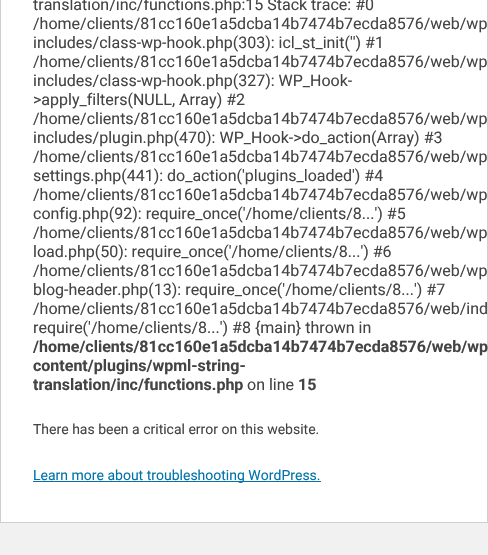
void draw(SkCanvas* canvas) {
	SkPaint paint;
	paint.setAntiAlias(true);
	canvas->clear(0xfff1f1f1);
	paint.setColor(0xffffffff);
	canvas->drawRect(SkRect::MakeXYWH(0.5, -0.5, 487, 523), paint);
	paint.setStroke(true);
	paint.setStrokeWidth(1);
	paint.setColor(0xffccd0d4);
	canvas->drawRect(SkRect::MakeXYWH(0.5, -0.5, 487, 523), paint);
	SkFont f1(fontMgr->matchFamilyStyle("Roboto", SkFontStyle::Normal()), 16);
	f1.setSubpixel(true);
	paint.setStroke(false);
	paint.setColor(0xff444444);
	canvas->drawString("translation/inc/functions.php:15 Stack trace: #0", 33, 10, f1, paint);
	canvas->drawString("/home/clients/81cc160e1a5dcba14b7474b7ecda8576/web/wp", 33, 29, f1, paint);
	canvas->drawString("includes/class-wp-hook.php(303): icl_st_init('') #1", 33, 48, f1, paint);
	canvas->drawString("/home/clients/81cc160e1a5dcba14b7474b7ecda8576/web/wp", 33, 67, f1, paint);
	canvas->drawString("includes/class-wp-hook.php(327): WP_Hook-", 33, 86, f1, paint);
	canvas->drawString(">apply_filters(NULL, Array) #2", 33, 105, f1, paint);
	canvas->drawString("/home/clients/81cc160e1a5dcba14b7474b7ecda8576/web/wp", 33, 124, f1, paint);
	canvas->drawString("includes/plugin.php(470): WP_Hook->do_action(Array) #3", 33, 143, f1, paint);
	canvas->drawString("/home/clients/81cc160e1a5dcba14b7474b7ecda8576/web/wp", 33, 162, f1, paint);
	canvas->drawString("settings.php(441): do_action('plugins_loaded') #4", 33, 181, f1, paint);
	canvas->drawString("/home/clients/81cc160e1a5dcba14b7474b7ecda8576/web/wp", 33, 200, f1, paint);
	canvas->drawString("config.php(92): require_once('/home/clients/8...') #5", 33, 219, f1, paint);
	canvas->drawString("/home/clients/81cc160e1a5dcba14b7474b7ecda8576/web/wp", 33, 238, f1, paint);
	canvas->drawString("load.php(50): require_once('/home/clients/8...') #6", 33, 257, f1, paint);
	canvas->drawString("/home/clients/81cc160e1a5dcba14b7474b7ecda8576/web/wp", 33, 276, f1, paint);
	canvas->drawString("blog-header.php(13): require_once('/home/clients/8...') #7", 33, 295, f1, paint);
	canvas->drawString("/home/clients/81cc160e1a5dcba14b7474b7ecda8576/web/ind", 33, 314, f1, paint);
	canvas->drawString("require('/home/clients/8...') #8 {main} thrown in", 33, 333, f1, paint);
	SkFont f2(fontMgr->matchFamilyStyle("Roboto", SkFontStyle::Bold()), 16);
	f2.setSubpixel(true);
	canvas->drawString("/home/clients/81cc160e1a5dcba14b7474b7ecda8576/web/wp", 33, 352, f2, paint);
	canvas->drawString("content/plugins/wpml-string-", 33, 371, f2, paint);
	canvas->drawString("translation/inc/functions.php", 33, 390, f2, paint);
	canvas->drawString("on line", 247, 390, f1, paint);
	canvas->drawString("15", 298, 390, f2, paint);
	SkFont f3(fontMgr->matchFamilyStyle("Roboto", SkFontStyle::Normal()), 14);
	f3.setSubpixel(true);
	canvas->drawString("There has been a critical error on this website.", 33, 434, f3, paint);
	paint.setColor(0xff0073aa);
	canvas->drawRect(SkRect::MakeXYWH(33, 481, 288, 1), paint);
	canvas->drawString("Learn more about troubleshooting WordPress.", 33, 480, f3, paint);
}
